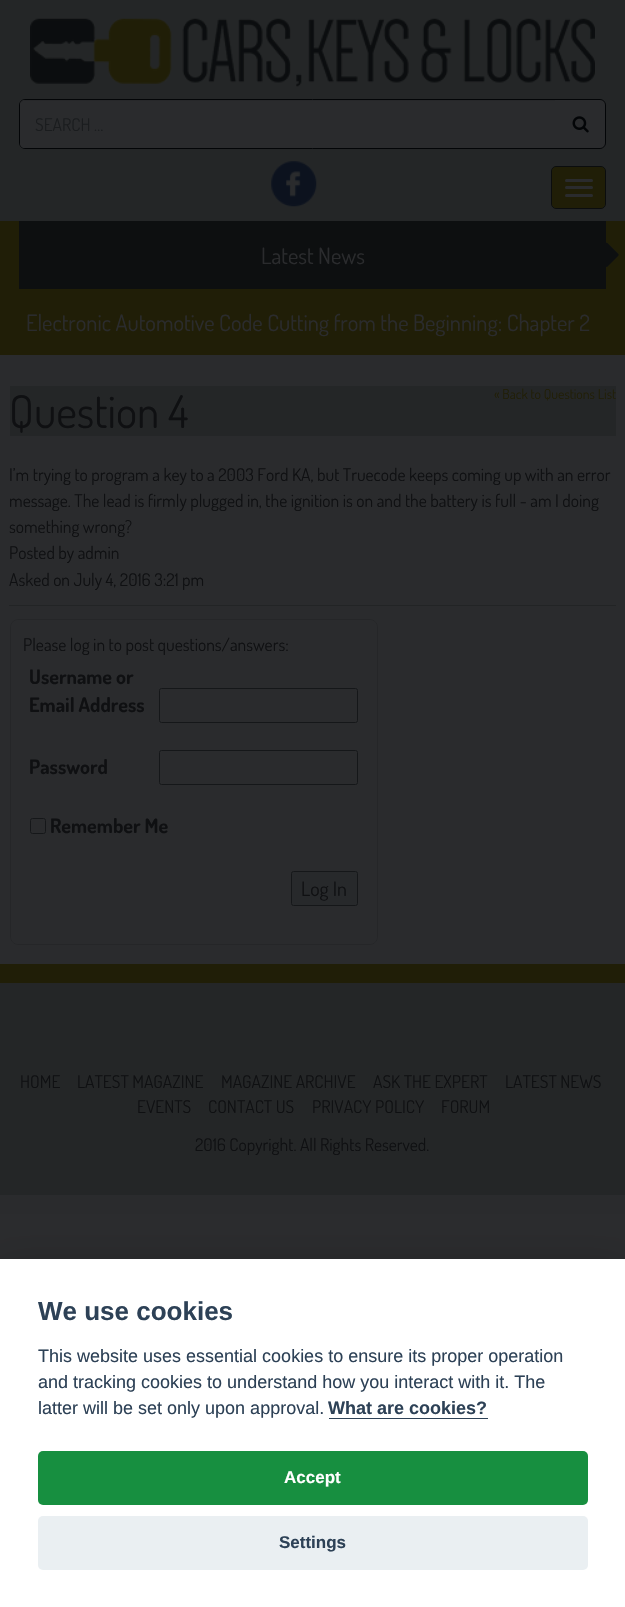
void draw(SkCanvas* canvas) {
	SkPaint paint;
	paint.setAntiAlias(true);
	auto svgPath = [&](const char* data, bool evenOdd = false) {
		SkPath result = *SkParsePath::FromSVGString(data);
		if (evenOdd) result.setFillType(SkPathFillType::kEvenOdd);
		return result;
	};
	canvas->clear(0xff2a2b2d);
	paint.setColor(0xff242627);
	canvas->drawRect(SkRect::MakeXYWH(0, 0, 625, 221), paint);
	canvas->drawImageRect(SkImages::DeferredFromEncodedData(SkData::MakeFromFileName("img1.png")), SkRect::MakeXYWH(30, 18, 565, 69), SkSamplingOptions());
	paint.setColor(0xff2a2b2d);
	canvas->drawRoundRect(SkRect::MakeXYWH(19.5, 99.5, 586, 49), 5.5, 5.5, paint);
	paint.setStroke(true);
	paint.setStrokeWidth(1);
	paint.setColor(0xff030507);
	canvas->drawRoundRect(SkRect::MakeXYWH(19.5, 99.5, 586, 49), 5.5, 5.5, paint);
	paint.setStroke(false);
	paint.setColor(0xff2a2b2d);
	canvas->drawPath(svgPath("M25 100H555V148H25C22 148 20 146 20 143V105C20 102 22 100 25 100Z"), paint);
	paint.setColor(0x12030507);
	canvas->drawPath(svgPath("M25 101H555V100H25C22 100 20 103 20 106C20 103 22 101 25 101Z"), paint);
	SkFont f1(fontMgr->matchFamilyStyle("Dosis", SkFontStyle::Normal()), 17.5);
	f1.setSubpixel(true);
	paint.setColor(0xff1a1c1e);
	canvas->drawString("SEARCH …", 35, 131, f1, paint);
	canvas->drawImageRect(SkImages::DeferredFromEncodedData(SkData::MakeFromFileName("img2.png")), SkRect::MakeXYWH(572, 116, 17, 17), SkSamplingOptions());
	canvas->drawImageRect(SkImages::DeferredFromEncodedData(SkData::MakeFromFileName("img3.png")), SkRect::MakeXYWH(271, 161, 46, 46), SkSamplingOptions());
	paint.setColor(0xff201e07);
	canvas->drawRoundRect(SkRect::MakeXYWH(551.5, 166.5, 54, 42), 4.5, 4.5, paint);
	paint.setStroke(true);
	paint.setColor(0xff0b0d0e);
	canvas->drawRoundRect(SkRect::MakeXYWH(551.5, 166.5, 54, 42), 4.5, 4.5, paint);
	paint.setStroke(false);
	paint.setColor(0xff2a2b2d);
	canvas->drawRoundRect(SkRect::MakeXYWH(565, 179, 28, 3), 1.5, 1.5, paint);
	canvas->drawRoundRect(SkRect::MakeXYWH(565, 186, 28, 3), 1.5, 1.5, paint);
	canvas->drawRoundRect(SkRect::MakeXYWH(565, 194, 28, 3), 1.5, 1.5, paint);
	paint.setColor(0xff201e07);
	canvas->drawRect(SkRect::MakeXYWH(0, 221, 625, 134), paint);
	paint.setColor(0xff0d0f10);
	canvas->drawRect(SkRect::MakeXYWH(19, 221, 587, 68), paint);
	SkFont f2(fontMgr->matchFamilyStyle("Dosis", SkFontStyle::Normal()), 22.5);
	f2.setSubpixel(true);
	paint.setColor(0xff2a2b2d);
	canvas->drawString("Latest News", 261, 264, f2, paint);
	canvas->drawImageRect(SkImages::DeferredFromEncodedData(SkData::MakeFromFileName("img4.png")), SkRect::MakeXYWH(606, 242, 13, 25), SkSamplingOptions());
	canvas->drawString("Electronic Automotive Code Cutting from the Beginning: Chapter 2", 26, 331, f2, paint);
	paint.setColor(0xff242627);
	canvas->drawRect(SkRect::MakeXYWH(10, 386, 606, 50), paint);
	SkFont f3(fontMgr->matchFamilyStyle("Dosis", SkFontStyle::Normal()), 45);
	f3.setSubpixel(true);
	paint.setColor(0xff0f1012);
	canvas->drawString("Question 4", 9, 428, f3, paint);
	SkFont f4(fontMgr->matchFamilyStyle("Dosis", SkFontStyle::Normal()), 13.75);
	f4.setSubpixel(true);
	paint.setColor(0xff201e07);
	canvas->drawString("« Back to Questions List", 494, 399, f4, paint);
	paint.setColor(0xff222425);
	canvas->drawRect(SkRect::MakeXYWH(9, 605, 607, 1), paint);
	paint.setColor(0xff0f1012);
	canvas->drawString("I’m trying to program a key to a 2003 Ford KA, but Truecode keeps coming up with an error", 9, 481, f1, paint);
	canvas->drawString("message. The lead is firmly plugged in, the ignition is on and the battery is full - am I doing", 9, 507, f1, paint);
	canvas->drawString("something wrong?", 9, 533, f1, paint);
	canvas->drawString("Posted by admin", 9, 559, f1, paint);
	canvas->drawString("Asked on July 4, 2016 3:21 pm", 9, 586, f1, paint);
	paint.setStroke(true);
	paint.setColor(0xff252628);
	canvas->drawRoundRect(SkRect::MakeXYWH(10.5, 619.5, 367, 325), 7.5, 7.5, paint);
	paint.setStroke(false);
	paint.setColor(0xff0f1012);
	canvas->drawString("Please log in to post questions/answers:", 23, 651, f1, paint);
	SkFont f5(fontMgr->matchFamilyStyle("Dosis", SkFontStyle::Bold()), 20);
	f5.setSubpixel(true);
	canvas->drawString("Username or", 29, 684, f5, paint);
	canvas->drawString("Email Address", 29, 712, f5, paint);
	paint.setStroke(true);
	paint.setColor(0xff151719);
	canvas->drawRoundRect(SkRect::MakeXYWH(159.5, 688.5, 198, 34), 2, 2, paint);
	paint.setStroke(false);
	paint.setColor(0xff0f1012);
	canvas->drawString("Password", 29, 774, f5, paint);
	paint.setStroke(true);
	paint.setColor(0xff151719);
	canvas->drawRoundRect(SkRect::MakeXYWH(159.5, 750.5, 198, 34), 2, 2, paint);
	canvas->drawRoundRect(SkRect::MakeXYWH(30.5, 818.5, 15, 15), 2, 2, paint);
	paint.setStroke(false);
	paint.setColor(0xff0f1012);
	canvas->drawString("Remember Me", 50, 833, f5, paint);
	paint.setColor(0xff27292b);
	canvas->drawRoundRect(SkRect::MakeXYWH(291.5, 871.5, 66, 34), 2, 2, paint);
	paint.setStroke(true);
	paint.setColor(0xff151719);
	canvas->drawRoundRect(SkRect::MakeXYWH(291.5, 871.5, 66, 34), 2, 2, paint);
	SkFont f6(fontMgr->matchFamilyStyle("Dosis", SkFontStyle::Normal()), 20);
	f6.setSubpixel(true);
	paint.setStroke(false);
	paint.setColor(0xff0f1012);
	canvas->drawString("Log In", 301, 896, f6, paint);
	paint.setColor(0xff242627);
	canvas->drawRect(SkRect::MakeXYWH(0, 983, 625, 212), paint);
	paint.setColor(0xff201e07);
	canvas->drawRect(SkRect::MakeXYWH(0, 964, 625, 19), paint);
	paint.setColor(0xff0f1012);
	canvas->drawString("HOME", 20, 1088, f1, paint);
	canvas->drawString("LATEST MAGAZINE", 77, 1088, f1, paint);
	canvas->drawString("MAGAZINE ARCHIVE", 221, 1088, f1, paint);
	canvas->drawString("ASK THE EXPERT", 373, 1088, f1, paint);
	canvas->drawString("LATEST NEWS", 505, 1088, f1, paint);
	canvas->drawString("EVENTS", 137, 1113, f1, paint);
	canvas->drawString("CONTACT US", 208, 1113, f1, paint);
	canvas->drawString("PRIVACY POLICY", 312, 1113, f1, paint);
	canvas->drawString("FORUM", 441, 1113, f1, paint);
	canvas->drawString("2016 Copyright. All Rights Reserved.", 195, 1151, f1, paint);
	paint.setColor(0x47020203);
	paint.setMaskFilter(SkMaskFilter::MakeBlur(kNormal_SkBlurStyle, 19));
	canvas->drawRect(SkRect::MakeXYWH(0, 1271, 625, 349), paint);
	paint.setMaskFilter(nullptr);
	paint.setColor(0xffffffff);
	canvas->drawRect(SkRect::MakeXYWH(0, 1259, 625, 348), paint);
	SkFont f7(fontMgr->matchFamilyStyle("Liberation Sans", SkFontStyle::Bold()), 26);
	f7.setSubpixel(true);
	paint.setColor(0xff2d4156);
	canvas->drawString("We use cookies", 38, 1320, f7, paint);
	SkFont f8(fontMgr->matchFamilyStyle("Liberation Sans", SkFontStyle::Normal()), 18);
	f8.setSubpixel(true);
	canvas->drawString("This website uses essential cookies to ensure its proper operation", 38, 1362, f8, paint);
	canvas->drawString("and tracking cookies to understand how you interact with it. The", 38, 1388, f8, paint);
	canvas->drawString("latter will be set only upon approval.", 38, 1414, f8, paint);
	SkFont f9(fontMgr->matchFamilyStyle("Liberation Sans", SkFontStyle::Bold()), 18);
	f9.setSubpixel(true);
	canvas->drawString("What are cookies?", 328, 1414, f9, paint);
	canvas->drawRect(SkRect::MakeXYWH(329, 1418, 159, 1), paint);
	paint.setColor(0xff178f40);
	canvas->drawRoundRect(SkRect::MakeXYWH(38, 1451, 550, 54), 5, 5, paint);
	SkFont f10(fontMgr->matchFamilyStyle("Liberation Sans", SkFontStyle::Bold()), 17);
	f10.setSubpixel(true);
	paint.setColor(0xffffffff);
	canvas->drawString("Accept", 284, 1483, f10, paint);
	paint.setColor(0xffeaeff2);
	canvas->drawRoundRect(SkRect::MakeXYWH(38, 1516, 550, 54), 5, 5, paint);
	paint.setColor(0xff2d4156);
	canvas->drawString("Settings", 279, 1548, f10, paint);
}
